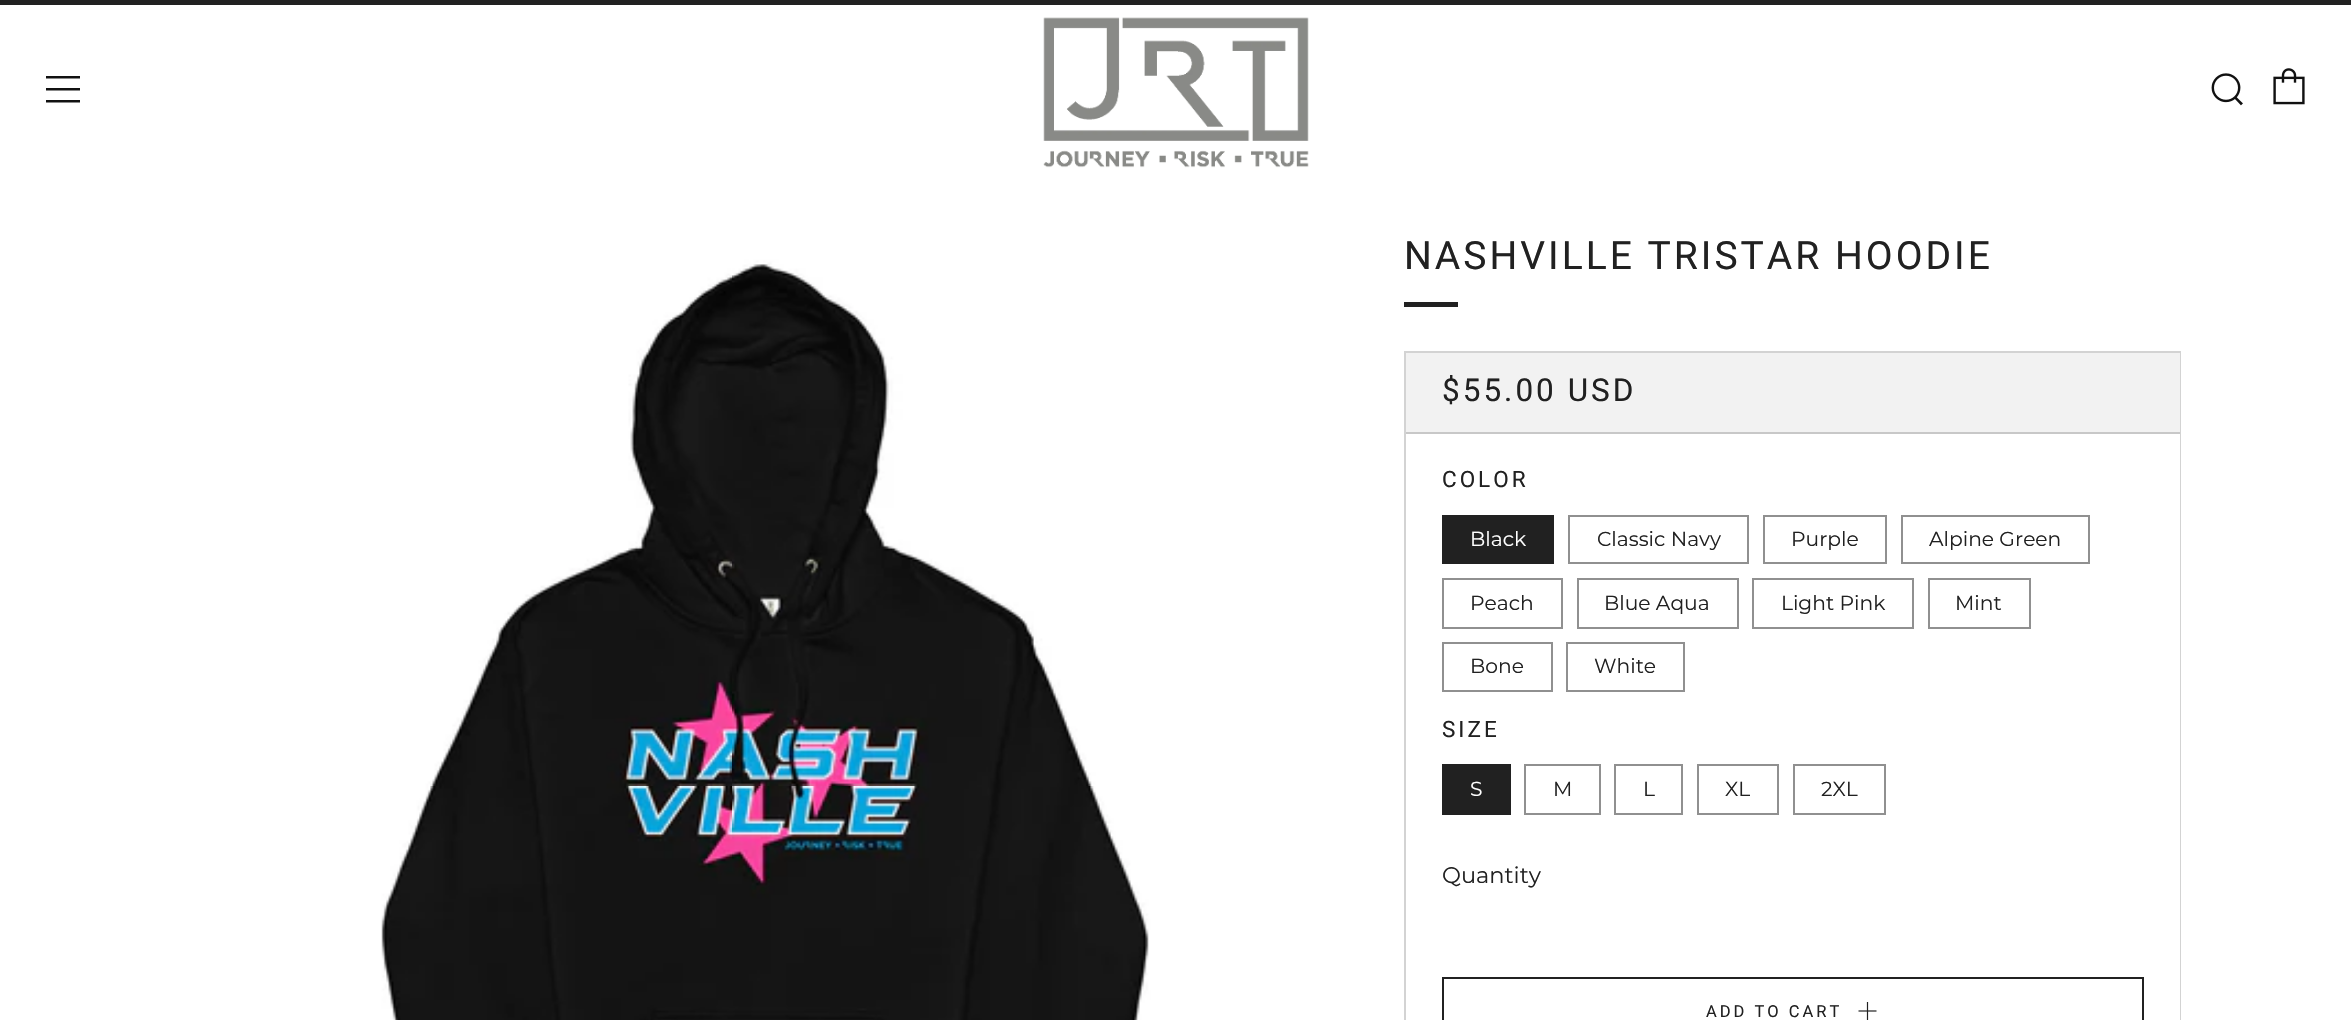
void draw(SkCanvas* canvas) {
	SkPaint paint;
	paint.setAntiAlias(true);
	auto spacedText = [&](const char* s, float x, float y, const SkFont& font, const SkPaint& ink, float letter, float word) {
		std::vector<SkGlyphID> glyphs(font.countText(s, strlen(s), SkTextEncoding::kUTF8));
		std::vector<float> xs(glyphs.size());
		font.textToGlyphs(s, strlen(s), SkTextEncoding::kUTF8, glyphs);
		font.getXPos(glyphs, xs, x);
		float extra = 0;
		for (size_t i = 0; i < glyphs.size(); i++) {
			xs[i] += extra;
			extra += letter + word * (glyphs[i] == font.unicharToGlyph(' '));
		}
		canvas->drawTextBlob(SkTextBlob::MakeFromPosHGlyphs(glyphs, xs, y, font), 0, 0, ink);
	};
	auto svgPath = [&](const char* data, bool evenOdd = false) {
		SkPath result = *SkParsePath::FromSVGString(data);
		if (evenOdd) result.setFillType(SkPathFillType::kEvenOdd);
		return result;
	};
	canvas->clear(0xffffffff);
	paint.setColor(0xff212121);
	canvas->drawRect(SkRect::MakeXYWH(0, 0, 2351, 5), paint);
	paint.setColor(0xff111111);
	canvas->drawPath(svgPath("M46 78.5H80V76H46ZM46 102.5H80V100H46ZM46 90.5H80V88H46Z"), paint);
	canvas->drawImageRect(SkImages::DeferredFromEncodedData(SkData::MakeFromFileName("img1.png")), SkRect::MakeXYWH(1043, 17, 266, 151), SkSamplingOptions());
	canvas->drawImageRect(SkImages::DeferredFromEncodedData(SkData::MakeFromFileName("img2.png")), SkRect::MakeXYWH(2211, 73, 32, 33), SkSamplingOptions());
	canvas->drawImageRect(SkImages::DeferredFromEncodedData(SkData::MakeFromFileName("img3.png")), SkRect::MakeXYWH(2273, 68, 32, 37), SkSamplingOptions());
	canvas->drawImageRect(SkImages::DeferredFromEncodedData(SkData::MakeFromFileName("img4.png")), SkRect::MakeXYWH(171, 225, 1188, 795), SkSamplingOptions());
	SkFont f1(fontMgr->matchFamilyStyle("Roboto", SkFontStyle::Normal()), 39);
	f1.setSubpixel(true);
	paint.setColor(0xff212121);
	spacedText("NASHVILLE TRISTAR HOODIE", 1404, 269, f1, paint, 3, 0);
	canvas->drawRect(SkRect::MakeXYWH(1404, 302, 54, 5), paint);
	paint.setStroke(true);
	paint.setStrokeWidth(2);
	paint.setColor(0xffd3d3d3);
	canvas->drawRect(SkRect::MakeXYWH(1405, 352, 775, 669), paint);
	paint.setStroke(false);
	paint.setColor(0xffffffff);
	canvas->drawRect(SkRect::MakeXYWH(2179, 434, 1, 586), paint);
	paint.setColor(0xfff2f2f2);
	canvas->drawRect(SkRect::MakeXYWH(1406, 353, 774, 79), paint);
	paint.setColor(0xffc8c8c8);
	canvas->drawRect(SkRect::MakeXYWH(1406, 432, 774, 2), paint);
	SkFont f2(fontMgr->matchFamilyStyle("Roboto", SkFontStyle::Normal()), 31.5);
	f2.setSubpixel(true);
	paint.setColor(0xff212121);
	spacedText("$55.00 USD", 1442, 401, f2, paint, 3, 0);
	SkFont f3(fontMgr->matchFamilyStyle("Roboto", SkFontStyle::Normal()), 22.5);
	f3.setSubpixel(true);
	spacedText("COLOR", 1442, 487, f3, paint, 3, 0);
	canvas->drawRect(SkRect::MakeXYWH(1442, 515, 112, 49), paint);
	SkFont f4(fontMgr->matchFamilyStyle("Montserrat", SkFontStyle::Normal()), 20.25);
	f4.setSubpixel(true);
	paint.setColor(0xffffffff);
	canvas->drawString("Black", 1470, 546, f4, paint);
	paint.setStroke(true);
	paint.setColor(0xff909090);
	canvas->drawRect(SkRect::MakeXYWH(1569, 516, 179, 47), paint);
	paint.setStroke(false);
	paint.setColor(0xff212121);
	canvas->drawString("Classic Navy", 1597, 546, f4, paint);
	paint.setStroke(true);
	paint.setColor(0xff909090);
	canvas->drawRect(SkRect::MakeXYWH(1764, 516, 122, 47), paint);
	paint.setStroke(false);
	paint.setColor(0xff212121);
	canvas->drawString("Purple", 1791, 546, f4, paint);
	paint.setStroke(true);
	paint.setColor(0xff909090);
	canvas->drawRect(SkRect::MakeXYWH(1902, 516, 187, 47), paint);
	paint.setStroke(false);
	paint.setColor(0xff212121);
	canvas->drawString("Alpine Green", 1929, 546, f4, paint);
	paint.setStroke(true);
	paint.setColor(0xff909090);
	canvas->drawRect(SkRect::MakeXYWH(1443, 579, 119, 49), paint);
	paint.setStroke(false);
	paint.setColor(0xff212121);
	canvas->drawString("Peach", 1470, 610, f4, paint);
	paint.setStroke(true);
	paint.setColor(0xff909090);
	canvas->drawRect(SkRect::MakeXYWH(1578, 579, 160, 49), paint);
	paint.setStroke(false);
	paint.setColor(0xff212121);
	canvas->drawString("Blue Aqua", 1604, 610, f4, paint);
	paint.setStroke(true);
	paint.setColor(0xff909090);
	canvas->drawRect(SkRect::MakeXYWH(1753, 579, 160, 49), paint);
	paint.setStroke(false);
	paint.setColor(0xff212121);
	canvas->drawString("Light Pink", 1781, 610, f4, paint);
	paint.setStroke(true);
	paint.setColor(0xff909090);
	canvas->drawRect(SkRect::MakeXYWH(1929, 579, 101, 49), paint);
	paint.setStroke(false);
	paint.setColor(0xff212121);
	canvas->drawString("Mint", 1955, 610, f4, paint);
	paint.setStroke(true);
	paint.setColor(0xff909090);
	canvas->drawRect(SkRect::MakeXYWH(1443, 643, 109, 48), paint);
	paint.setStroke(false);
	paint.setColor(0xff212121);
	canvas->drawString("Bone", 1470, 673, f4, paint);
	paint.setStroke(true);
	paint.setColor(0xff909090);
	canvas->drawRect(SkRect::MakeXYWH(1567, 643, 117, 48), paint);
	paint.setStroke(false);
	paint.setColor(0xff212121);
	canvas->drawString("White", 1594, 673, f4, paint);
	spacedText("SIZE", 1442, 737, f3, paint, 3, 0);
	canvas->drawRect(SkRect::MakeXYWH(1442, 764, 69, 51), paint);
	paint.setColor(0xffffffff);
	canvas->drawString("S", 1470, 796, f4, paint);
	paint.setStroke(true);
	paint.setColor(0xff909090);
	canvas->drawRect(SkRect::MakeXYWH(1525, 765, 75, 49), paint);
	paint.setStroke(false);
	paint.setColor(0xff212121);
	canvas->drawString("M", 1553, 796, f4, paint);
	paint.setStroke(true);
	paint.setColor(0xff909090);
	canvas->drawRect(SkRect::MakeXYWH(1615, 765, 67, 49), paint);
	paint.setStroke(false);
	paint.setColor(0xff212121);
	canvas->drawString("L", 1643, 796, f4, paint);
	paint.setStroke(true);
	paint.setColor(0xff909090);
	canvas->drawRect(SkRect::MakeXYWH(1698, 765, 80, 49), paint);
	paint.setStroke(false);
	paint.setColor(0xff212121);
	canvas->drawString("XL", 1725, 796, f4, paint);
	paint.setStroke(true);
	paint.setColor(0xff909090);
	canvas->drawRect(SkRect::MakeXYWH(1794, 765, 91, 49), paint);
	paint.setStroke(false);
	paint.setColor(0xff212121);
	canvas->drawString("2XL", 1821, 796, f4, paint);
	SkFont f5(fontMgr->matchFamilyStyle("Montserrat", SkFontStyle::Normal()), 22.5);
	f5.setSubpixel(true);
	canvas->drawString("Quantity", 1442, 883, f5, paint);
	paint.setStroke(true);
	canvas->drawRect(SkRect::MakeXYWH(1443, 978, 700, 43), paint);
	SkFont f6(fontMgr->matchFamilyStyle("Roboto", SkFontStyle::Normal()), 16.5);
	f6.setSubpixel(true);
	paint.setStroke(false);
	spacedText("ADD TO CART", 1706, 1017, f6, paint, 3, 0);
	canvas->drawImageRect(SkImages::DeferredFromEncodedData(SkData::MakeFromFileName("img5.png")), SkRect::MakeXYWH(1858, 1002, 19, 18), SkSamplingOptions());
}
